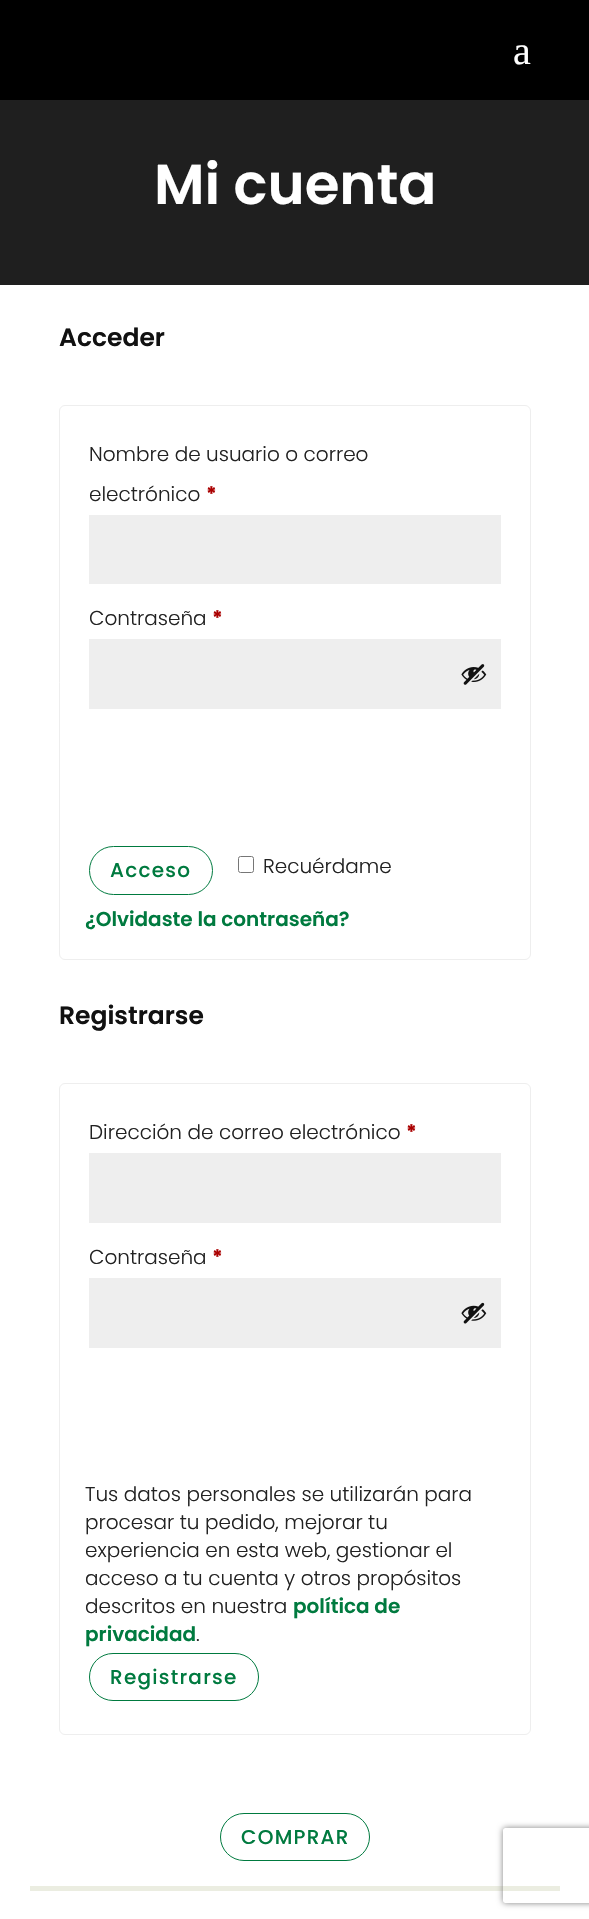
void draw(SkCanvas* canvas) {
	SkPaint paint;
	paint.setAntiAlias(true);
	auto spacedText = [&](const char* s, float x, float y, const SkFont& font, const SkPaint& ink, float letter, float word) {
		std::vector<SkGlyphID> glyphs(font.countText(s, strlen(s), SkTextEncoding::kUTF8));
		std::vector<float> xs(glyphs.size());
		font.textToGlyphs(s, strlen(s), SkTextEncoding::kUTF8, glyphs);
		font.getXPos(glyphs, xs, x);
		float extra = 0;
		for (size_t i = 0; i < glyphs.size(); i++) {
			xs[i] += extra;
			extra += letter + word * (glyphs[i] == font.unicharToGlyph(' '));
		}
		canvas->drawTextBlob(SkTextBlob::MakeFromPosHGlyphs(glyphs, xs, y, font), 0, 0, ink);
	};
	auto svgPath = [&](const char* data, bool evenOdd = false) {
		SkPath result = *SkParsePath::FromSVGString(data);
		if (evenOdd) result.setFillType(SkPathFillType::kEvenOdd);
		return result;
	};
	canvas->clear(0xffffffff);
	paint.setColor(0xff000000);
	canvas->drawRect(SkRect::MakeXYWH(0, 0, 589, 100), paint);
	SkFont f1(fontMgr->matchFamilyStyle("Liberation Serif", SkFontStyle::Normal()), 40);
	f1.setSubpixel(true);
	paint.setColor(0xffffffff);
	canvas->drawString("a", 513, 64, f1, paint);
	paint.setColor(0xff1f1f1f);
	canvas->drawRect(SkRect::MakeXYWH(0, 100, 589, 185), paint);
	SkFont f2(fontMgr->matchFamilyStyle("Poppins", SkFontStyle(600, SkFontStyle::kNormal_Width, SkFontStyle::kUpright_Slant)), 56.25);
	f2.setSubpixel(true);
	paint.setColor(0xffffffff);
	canvas->drawString("Mi cuenta", 154, 204, f2, paint);
	SkFont f3(fontMgr->matchFamilyStyle("Poppins", SkFontStyle(600, SkFontStyle::kNormal_Width, SkFontStyle::kUpright_Slant)), 25);
	f3.setSubpixel(true);
	paint.setColor(0xff111111);
	canvas->drawString("Acceder", 59, 346, f3, paint);
	paint.setStroke(true);
	paint.setStrokeWidth(1);
	paint.setColor(0xffeeeeee);
	canvas->drawRoundRect(SkRect::MakeXYWH(59.5, 405.5, 471, 554), 5.5, 5.5, paint);
	SkFont f4(fontMgr->matchFamilyStyle("Poppins", SkFontStyle(300, SkFontStyle::kNormal_Width, SkFontStyle::kUpright_Slant)), 20);
	f4.setSubpixel(true);
	paint.setStroke(false);
	paint.setColor(0xff222222);
	canvas->drawString("Nombre de usuario o correo", 89, 461, f4, paint);
	canvas->drawString("electrónico", 89, 501, f4, paint);
	SkFont f5(fontMgr->matchFamilyStyle("Poppins", SkFontStyle::Bold()), 20);
	f5.setSubpixel(true);
	paint.setColor(0xffaa0000);
	canvas->drawString("*", 206, 501, f5, paint);
	paint.setColor(0xffeeeeee);
	canvas->drawRect(SkRect::MakeXYWH(89, 515, 412, 69), paint);
	paint.setColor(0xff222222);
	canvas->drawString("Contraseña", 89, 625, f4, paint);
	paint.setColor(0xffaa0000);
	canvas->drawString("*", 212, 625, f5, paint);
	paint.setColor(0xffeeeeee);
	canvas->drawRect(SkRect::MakeXYWH(89, 639, 412, 70), paint);
	canvas->drawImageRect(SkImages::DeferredFromEncodedData(SkData::MakeFromFileName("img1.png")), SkRect::MakeXYWH(461, 664, 26, 21), SkSamplingOptions());
	paint.setStroke(true);
	paint.setColor(0xff007a3f);
	canvas->drawRoundRect(SkRect::MakeXYWH(89.5, 846.5, 123, 48), 24, 24, paint);
	SkFont f6(fontMgr->matchFamilyStyle("Poppins", SkFontStyle(500, SkFontStyle::kNormal_Width, SkFontStyle::kUpright_Slant)), 20);
	f6.setSubpixel(true);
	paint.setStroke(false);
	spacedText("Acceso", 110, 877, f6, paint, 1.25, 0);
	paint.setStroke(true);
	paint.setColor(0xff767676);
	canvas->drawRoundRect(SkRect::MakeXYWH(238.5, 856.5, 15, 16), 2, 2, paint);
	paint.setStroke(false);
	paint.setColor(0xff222222);
	canvas->drawString("Recuérdame", 263, 873, f4, paint);
	SkFont f7(fontMgr->matchFamilyStyle("Poppins", SkFontStyle(600, SkFontStyle::kNormal_Width, SkFontStyle::kUpright_Slant)), 20);
	f7.setSubpixel(true);
	paint.setColor(0xff007a3f);
	canvas->drawString("¿Olvidaste la contraseña?", 85, 926, f7, paint);
	paint.setColor(0xff111111);
	canvas->drawString("Registrarse", 59, 1024, f3, paint);
	paint.setStroke(true);
	paint.setColor(0xffeeeeee);
	canvas->drawRoundRect(SkRect::MakeXYWH(59.5, 1083.5, 471, 651), 5.5, 5.5, paint);
	paint.setStroke(false);
	paint.setColor(0xff222222);
	canvas->drawString("Dirección de correo electrónico", 89, 1139, f4, paint);
	paint.setColor(0xffaa0000);
	canvas->drawString("*", 406, 1139, f5, paint);
	paint.setColor(0xffeeeeee);
	canvas->drawRect(SkRect::MakeXYWH(89, 1153, 412, 70), paint);
	paint.setColor(0xff222222);
	canvas->drawString("Contraseña", 89, 1264, f4, paint);
	paint.setColor(0xffaa0000);
	canvas->drawString("*", 212, 1264, f5, paint);
	paint.setColor(0xffeeeeee);
	canvas->drawRect(SkRect::MakeXYWH(89, 1278, 412, 70), paint);
	canvas->drawImageRect(SkImages::DeferredFromEncodedData(SkData::MakeFromFileName("img2.png")), SkRect::MakeXYWH(461, 1302, 26, 22), SkSamplingOptions());
	paint.setColor(0xff222222);
	canvas->drawString("Tus datos personales se utilizarán para", 85, 1501, f4, paint);
	canvas->drawString("procesar tu pedido, mejorar tu", 85, 1529, f4, paint);
	canvas->drawString("experiencia en esta web, gestionar el", 85, 1557, f4, paint);
	canvas->drawString("acceso a tu cuenta y otros propósitos", 85, 1585, f4, paint);
	canvas->drawString("descritos en nuestra", 85, 1613, f4, paint);
	paint.setColor(0xff007a3f);
	canvas->drawString("política de", 293, 1613, f7, paint);
	canvas->drawString("privacidad", 85, 1641, f7, paint);
	paint.setColor(0xff222222);
	canvas->drawString(".", 196, 1641, f4, paint);
	paint.setStroke(true);
	paint.setColor(0xff007a3f);
	canvas->drawRoundRect(SkRect::MakeXYWH(89.5, 1653.5, 169, 47), 23.5, 23.5, paint);
	paint.setStroke(false);
	spacedText("Registrarse", 110, 1684, f6, paint, 1.25, 0);
	paint.setStroke(true);
	canvas->drawRoundRect(SkRect::MakeXYWH(220.5, 1813.5, 149, 47), 23.5, 23.5, paint);
	paint.setStroke(false);
	spacedText("COMPRAR", 241, 1844, f6, paint, 1.25, 0);
	paint.setColor(0xffebede1);
	canvas->drawRect(SkRect::MakeXYWH(30, 1886, 530, 5), paint);
	canvas->save();
	canvas->clipPath(svgPath("M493 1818H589V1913H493ZM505.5 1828H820.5C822 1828 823 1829 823 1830.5V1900.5C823 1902 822 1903 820.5 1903H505.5C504 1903 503 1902 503 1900.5V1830.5C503 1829 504 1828 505.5 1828Z", true), true);
	paint.setColor(0xff808080);
	paint.setMaskFilter(SkMaskFilter::MakeBlur(kNormal_SkBlurStyle, 3));
	canvas->drawRoundRect(SkRect::MakeXYWH(503, 1828, 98, 75), 2.5, 2.5, paint);
	paint.setMaskFilter(nullptr);
	canvas->restore();
}
